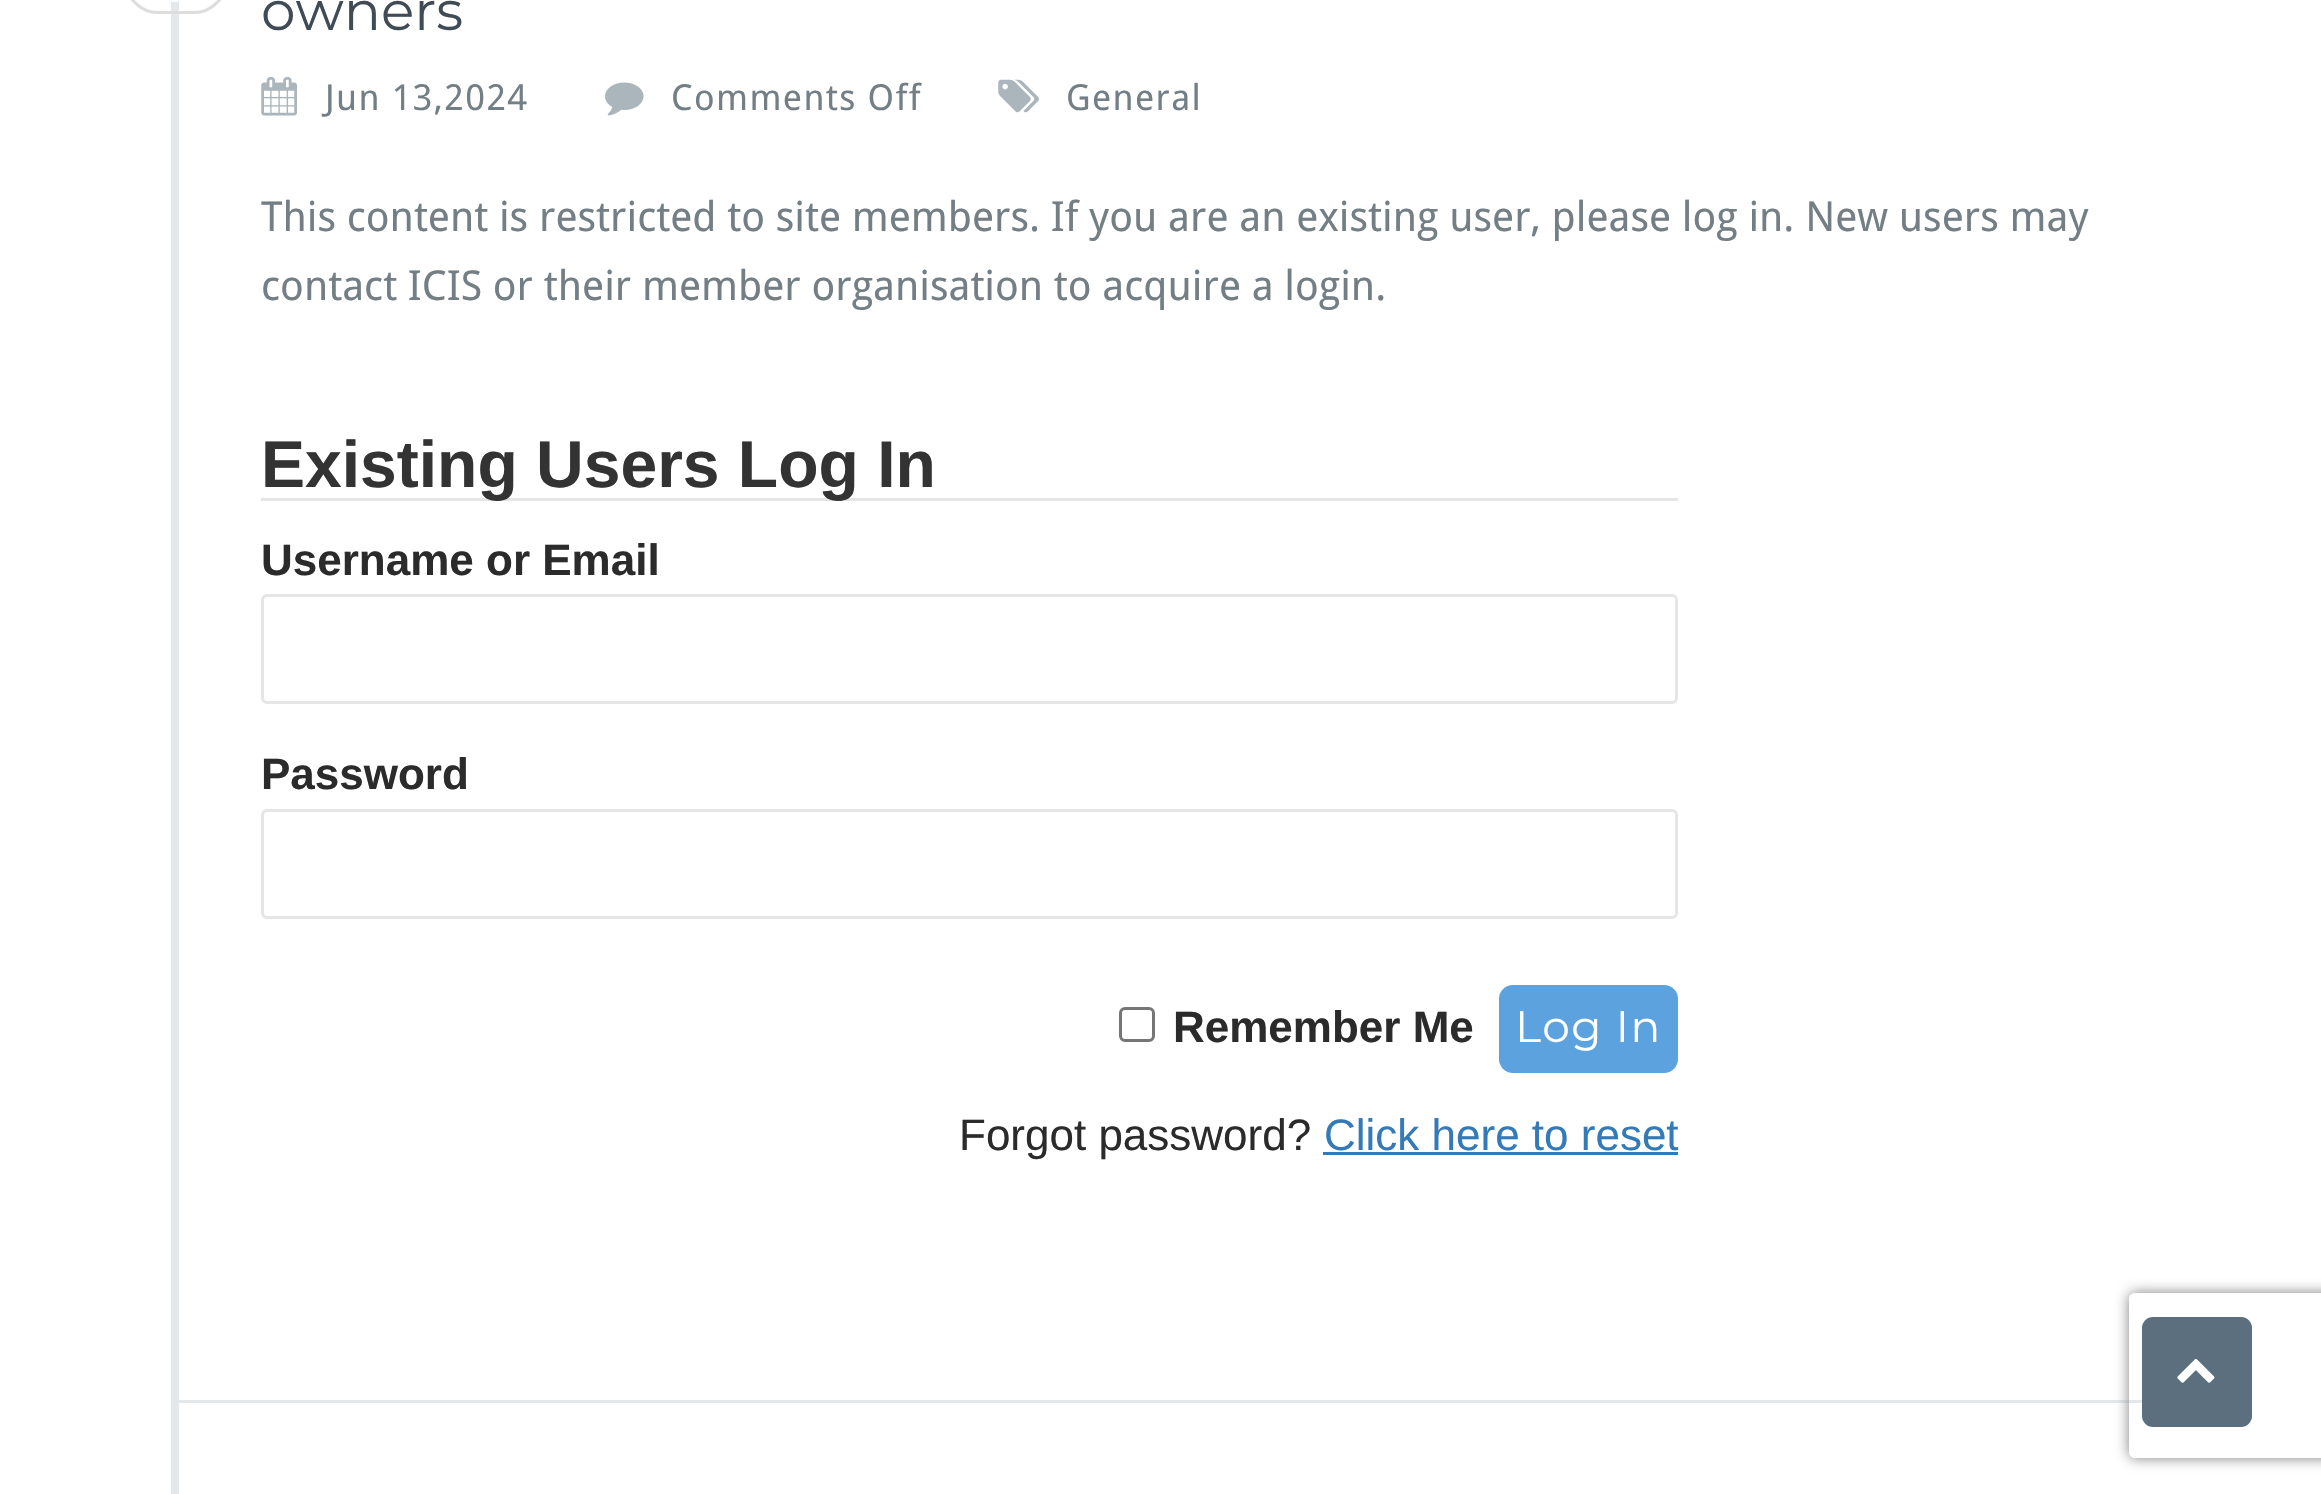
void draw(SkCanvas* canvas) {
	SkPaint paint;
	paint.setAntiAlias(true);
	auto spacedText = [&](const char* s, float x, float y, const SkFont& font, const SkPaint& ink, float letter, float word) {
		std::vector<SkGlyphID> glyphs(font.countText(s, strlen(s), SkTextEncoding::kUTF8));
		std::vector<float> xs(glyphs.size());
		font.textToGlyphs(s, strlen(s), SkTextEncoding::kUTF8, glyphs);
		font.getXPos(glyphs, xs, x);
		float extra = 0;
		for (size_t i = 0; i < glyphs.size(); i++) {
			xs[i] += extra;
			extra += letter + word * (glyphs[i] == font.unicharToGlyph(' '));
		}
		canvas->drawTextBlob(SkTextBlob::MakeFromPosHGlyphs(glyphs, xs, y, font), 0, 0, ink);
	};
	auto svgPath = [&](const char* data, bool evenOdd = false) {
		SkPath result = *SkParsePath::FromSVGString(data);
		if (evenOdd) result.setFillType(SkPathFillType::kEvenOdd);
		return result;
	};
	canvas->clear(0xffffffff);
	paint.setColor(0xffe4e8ea);
	canvas->drawRect(SkRect::MakeXYWH(171, 0, 8, 1494), paint);
	canvas->drawRect(SkRect::MakeXYWH(179, 1400, 1963, 3), paint);
	paint.setStroke(true);
	paint.setStrokeWidth(3);
	paint.setColor(0xffdddddd);
	canvas->drawRoundRect(SkRect::MakeXYWH(125.5, -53.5, 101, 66), 50.5, 50.5, paint);
	canvas->drawImageRect(SkImages::DeferredFromEncodedData(SkData::MakeFromFileName("img1.png")), SkRect::MakeXYWH(171, 0, 8, 2), SkSamplingOptions());
	SkFont f1(fontMgr->matchFamilyStyle("Montserrat", SkFontStyle::Normal()), 55);
	f1.setSubpixel(true);
	paint.setStroke(false);
	paint.setColor(0xff404b56);
	canvas->drawString("owners", 261, 30, f1, paint);
	canvas->drawImageRect(SkImages::DeferredFromEncodedData(SkData::MakeFromFileName("img2.png")), SkRect::MakeXYWH(261, 77, 36, 39), SkSamplingOptions());
	SkFont f2(fontMgr->matchFamilyStyle("Droid Sans", SkFontStyle::Normal()), 35.75);
	f2.setSubpixel(true);
	paint.setColor(0xff737f85);
	spacedText("Jun 13,2024", 325, 110, f2, paint, 1.4, 0);
	canvas->drawImageRect(SkImages::DeferredFromEncodedData(SkData::MakeFromFileName("img3.png")), SkRect::MakeXYWH(605, 82, 39, 34), SkSamplingOptions());
	spacedText("Comments Off", 671, 110, f2, paint, 1.4, 0);
	canvas->drawImageRect(SkImages::DeferredFromEncodedData(SkData::MakeFromFileName("img4.png")), SkRect::MakeXYWH(998, 79, 41, 34), SkSamplingOptions());
	spacedText("General", 1066, 110, f2, paint, 1.4, 0);
	SkFont f3(fontMgr->matchFamilyStyle("Droid Sans", SkFontStyle::Normal()), 41.25);
	f3.setSubpixel(true);
	canvas->drawString("This content is restricted to site members. If you are an existing user, please log in. New users may", 261, 231, f3, paint);
	canvas->drawString("contact ICIS or their member organisation to acquire a login.", 261, 300, f3, paint);
	paint.setColor(0xffe5e5e5);
	canvas->drawRect(SkRect::MakeXYWH(261, 498, 1417, 3), paint);
	SkFont f4(fontMgr->matchFamilyStyle("Liberation Sans", SkFontStyle::Bold()), 66);
	f4.setSubpixel(true);
	paint.setColor(0xff333333);
	canvas->drawString("Existing Users Log In", 261, 487, f4, paint);
	SkFont f5(fontMgr->matchFamilyStyle("Liberation Sans", SkFontStyle::Bold()), 44);
	f5.setSubpixel(true);
	paint.setColor(0xff2b2b2b);
	canvas->drawString("Username or Email", 261, 575, f5, paint);
	paint.setStroke(true);
	paint.setColor(0xffe6e6e6);
	canvas->drawRoundRect(SkRect::MakeXYWH(262.5, 595.5, 1414, 107), 4.5, 4.5, paint);
	paint.setStroke(false);
	paint.setColor(0xff2b2b2b);
	canvas->drawString("Password", 261, 789, f5, paint);
	paint.setStroke(true);
	paint.setColor(0xffe6e6e6);
	canvas->drawRoundRect(SkRect::MakeXYWH(262.5, 810.5, 1414, 107), 4.5, 4.5, paint);
	paint.setColor(0xff767676);
	canvas->drawRoundRect(SkRect::MakeXYWH(1120.5, 1008.5, 33, 32), 4.5, 4.5, paint);
	paint.setStroke(false);
	paint.setColor(0xff2b2b2b);
	canvas->drawString("Remember Me", 1173, 1042, f5, paint);
	paint.setColor(0xff5ca2df);
	canvas->drawRoundRect(SkRect::MakeXYWH(1499, 985, 179, 88), 14, 14, paint);
	SkFont f6(fontMgr->matchFamilyStyle("Montserrat", SkFontStyle::Normal()), 44);
	f6.setSubpixel(true);
	paint.setColor(0xffffffff);
	spacedText("Log In", 1515, 1042, f6, paint, 1.4, 0);
	SkFont f7(fontMgr->matchFamilyStyle("Liberation Sans", SkFontStyle::Normal()), 44);
	f7.setSubpixel(true);
	paint.setColor(0xff2b2b2b);
	canvas->drawString("Forgot password?", 959, 1150, f7, paint);
	paint.setColor(0xff337ab7);
	canvas->drawString("Click here to reset", 1324, 1150, f7, paint);
	canvas->drawRect(SkRect::MakeXYWH(1323, 1152, 355, 3), paint);
	canvas->save();
	canvas->clipPath(svgPath("M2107 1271H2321V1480H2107ZM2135 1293H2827C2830.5 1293 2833 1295.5 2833 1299V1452C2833 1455.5 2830.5 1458 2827 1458H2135C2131.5 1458 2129 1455.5 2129 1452V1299C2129 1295.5 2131.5 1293 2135 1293Z", true), true);
	paint.setColor(0xff808080);
	paint.setMaskFilter(SkMaskFilter::MakeBlur(kNormal_SkBlurStyle, 7));
	canvas->drawRoundRect(SkRect::MakeXYWH(2129, 1293, 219, 165), 6, 6, paint);
	paint.setMaskFilter(nullptr);
	canvas->restore();
	paint.setColor(0xff5b6f7f);
	canvas->drawRoundRect(SkRect::MakeXYWH(2142, 1317, 110, 110), 11, 11, paint);
	canvas->drawImageRect(SkImages::DeferredFromEncodedData(SkData::MakeFromFileName("img5.png")), SkRect::MakeXYWH(2177, 1359, 38, 24), SkSamplingOptions());
}
